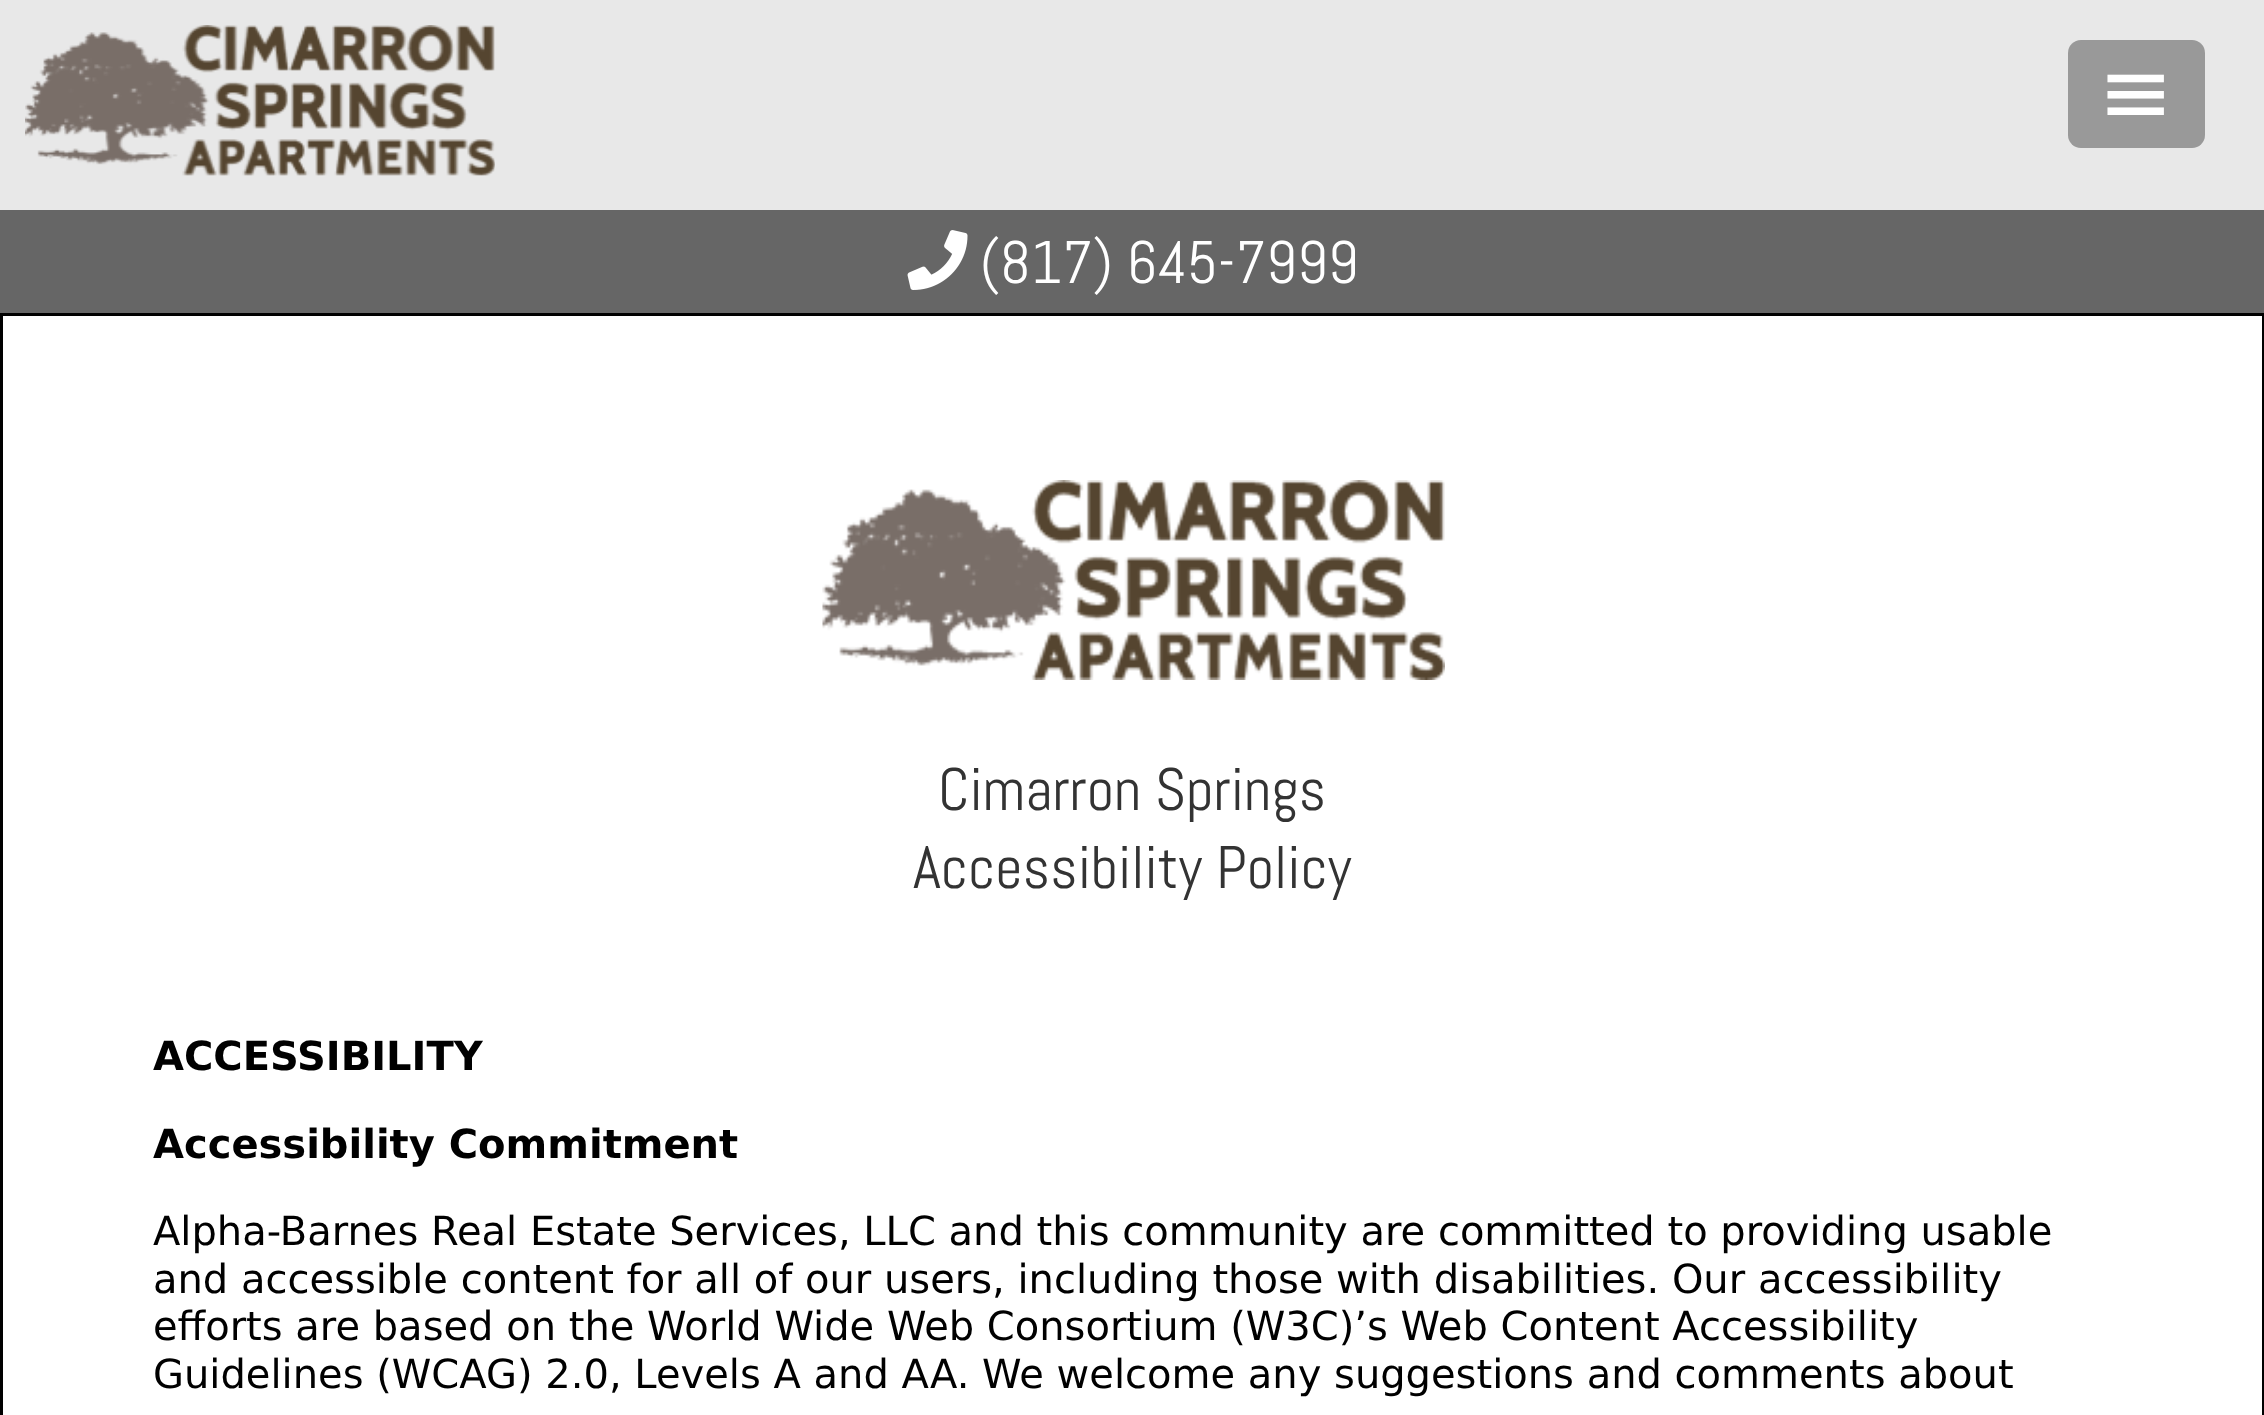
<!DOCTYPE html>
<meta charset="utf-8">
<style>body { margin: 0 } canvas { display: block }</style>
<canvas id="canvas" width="2264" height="1415"></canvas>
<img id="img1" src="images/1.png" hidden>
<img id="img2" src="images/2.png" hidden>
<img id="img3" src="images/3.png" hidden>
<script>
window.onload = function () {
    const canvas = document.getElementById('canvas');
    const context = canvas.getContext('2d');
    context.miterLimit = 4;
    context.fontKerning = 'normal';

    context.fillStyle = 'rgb(255, 255, 255)';
    context.fillRect(0, 0, 2264, 1415);
    context.strokeStyle = 'rgb(0, 0, 0)';
    context.lineWidth = 3;
    context.strokeRect(1.5, 1.5, 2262, 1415);
    context.fillStyle = 'rgb(232, 232, 232)';
    context.fillRect(0, 0, 2264, 210);
    context.fillStyle = 'rgb(153, 153, 153)';
    context.beginPath();
    context.roundRect(2068, 40, 137, 108, 13);
    context.fill();
    context.fillStyle = 'rgb(0, 0, 0)';
    context.fillRect(0, 313, 2264, 3);
    context.drawImage(document.getElementById('img1'), 25, 25, 470, 151);
    context.fillStyle = 'rgb(102, 102, 102)';
    context.fillRect(0, 210, 2264, 103);
    context.drawImage(document.getElementById('img2'), 907, 230, 61, 60);
    context.drawImage(document.getElementById('img3'), 822, 480, 623, 200);
    context.font = '90px DejaVu Sans';
    context.fillStyle = 'rgb(255, 255, 255)';
    context.fillText('≡', 2098, 123);
    context.font = '60px Abel';
    context.fillText('(817) 645-7999', 980, 283);
    context.fillStyle = 'rgb(51, 51, 51)';
    context.fillText('Cimarron Springs', 938, 810);
    context.fillText('Accessibility Policy', 913, 888);
    context.font = 'bold 40px DejaVu Sans';
    context.fillStyle = 'rgb(0, 0, 0)';
    context.fillText('ACCESSIBILITY', 153, 1070);
    context.fillText('Accessibility Commitment', 153, 1158);
    context.font = '40px DejaVu Sans';
    context.fillText('Alpha-Barnes Real Estate Services, LLC and this community are committed to providing usable', 153, 1245);
    context.fillText('and accessible content for all of our users, including those with disabilities. Our accessibility', 153, 1293);
    context.fillText('efforts are based on the World Wide Web Consortium (W3C)’s Web Content Accessibility', 153, 1340);
    context.fillText('Guidelines (WCAG) 2.0, Levels A and AA. We welcome any suggestions and comments about', 153, 1388);
};
</script>
